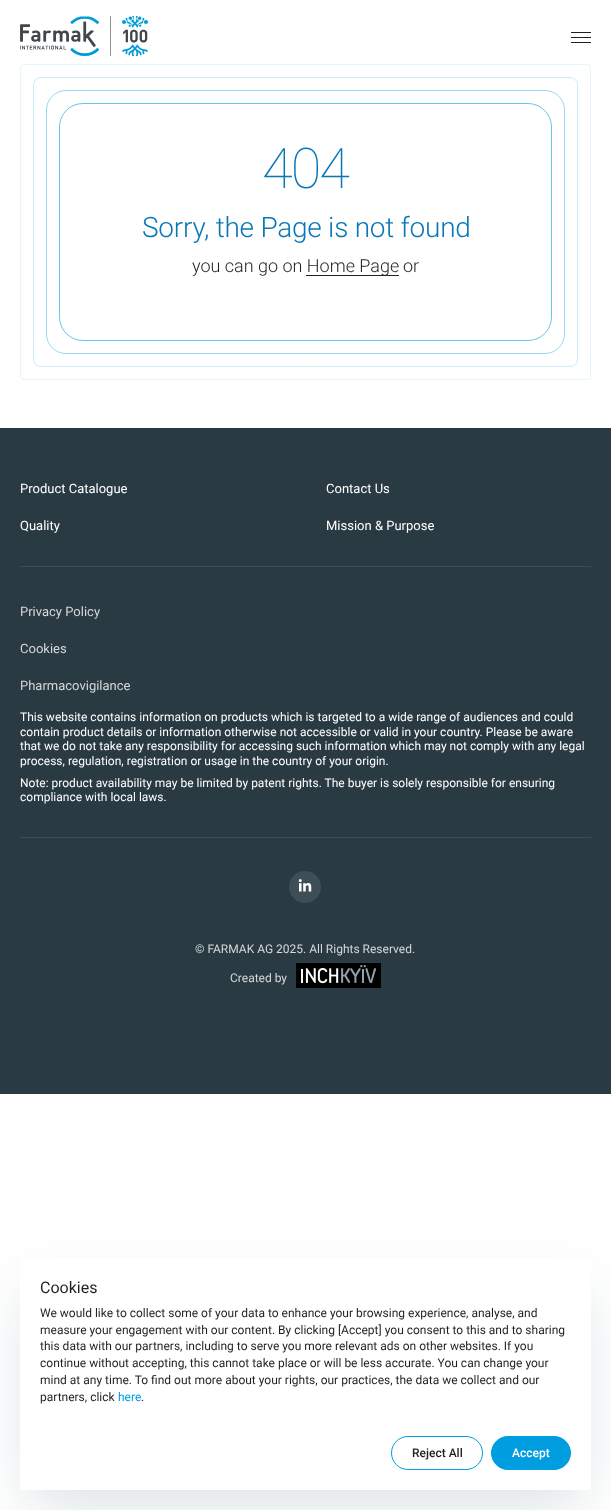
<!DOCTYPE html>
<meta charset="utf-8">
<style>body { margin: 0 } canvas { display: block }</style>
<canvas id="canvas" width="611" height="1510"></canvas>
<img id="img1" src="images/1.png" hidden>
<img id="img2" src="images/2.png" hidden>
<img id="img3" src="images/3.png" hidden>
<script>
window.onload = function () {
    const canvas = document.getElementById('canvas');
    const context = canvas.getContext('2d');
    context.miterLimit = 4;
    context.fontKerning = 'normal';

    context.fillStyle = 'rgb(255, 255, 255)';
    context.fillRect(0, 0, 611, 1510);
    context.drawImage(document.getElementById('img1'), 20, 16, 128, 40);
    context.fillStyle = 'rgb(35, 31, 32)';
    context.fillRect(571, 32, 20, 1);
    context.fillRect(571, 37, 20, 1);
    context.fillRect(571, 42, 20, 1);
    context.beginPath();
    context.roundRect(20.5, 64.5, 570, 315, 3.5);
    context.strokeStyle = 'rgb(230, 245, 252)';
    context.stroke();
    context.beginPath();
    context.roundRect(33.5, 77.5, 544, 289, 7.5);
    context.strokeStyle = 'rgb(204, 236, 249)';
    context.stroke();
    context.beginPath();
    context.roundRect(46.5, 90.5, 518, 263, 19.5);
    context.strokeStyle = 'rgb(153, 216, 243)';
    context.stroke();
    context.beginPath();
    context.roundRect(59.5, 103.5, 492, 237, 23.5);
    context.strokeStyle = 'rgb(102, 197, 236)';
    context.stroke();
    context.fillRect(306, 275, 93, 1);
    context.fillStyle = 'rgb(41, 58, 67)';
    context.fillRect(0, 428, 611, 666);
    context.fillStyle = 'rgb(62, 77, 85)';
    context.fillRect(20, 566, 571, 1);
    context.fillRect(20, 837, 571, 1);
    context.drawImage(document.getElementById('img2'), 289, 871, 32, 32);
    context.drawImage(document.getElementById('img3'), 296, 963, 85, 25);
    context.save();
    context.beginPath();
    context.moveTo(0, 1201);
    context.lineTo(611, 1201);
    context.lineTo(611, 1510);
    context.lineTo(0, 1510);
    context.closePath();
    context.moveTo(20, 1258);
    context.lineTo(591, 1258);
    context.lineTo(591, 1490);
    context.lineTo(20, 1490);
    context.closePath();
    context.clip('evenodd');
    context.fillStyle = 'rgba(0, 45, 64, 0.15)';
    context.filter = 'blur(30px)';
    context.beginPath();
    context.rect(30, 1292, 551, 212);
    context.fill();
    context.filter = 'none';
    context.restore();
    context.beginPath();
    context.roundRect(391.5, 1436.5, 91, 33, 16.5);
    context.strokeStyle = 'rgb(0, 158, 224)';
    context.stroke();
    context.fillStyle = 'rgb(0, 158, 224)';
    context.beginPath();
    context.roundRect(491.5, 1436.5, 79, 33, 16.5);
    context.fill();
    context.stroke();
    context.letterSpacing = '-2px';
    context.font = '100 56px Roboto';
    context.fillStyle = 'rgb(9, 119, 183)';
    context.fillText('404', 262, 188);
    context.letterSpacing = '-0.25px';
    context.font = '300 28px Roboto';
    context.fillText('Sorry, the Page is not found', 142, 237);
    context.letterSpacing = '0px';
    context.font = '300 18px Roboto';
    context.fillStyle = 'rgb(35, 31, 32)';
    context.fillText('you can go on Home Page', 192, 272);
    context.fillText('or', 403, 272);
    context.font = '13px Roboto';
    context.fillStyle = 'rgb(255, 255, 255)';
    context.fillText('Product Catalogue', 20, 493);
    context.fillText('Quality', 20, 530);
    context.fillText('Contact Us', 326, 493);
    context.fillText('Mission & Purpose', 326, 530);
    context.fillStyle = 'rgb(212, 216, 217)';
    context.fillText('Privacy Policy', 20, 616);
    context.fillText('Cookies', 20, 653);
    context.fillText('Pharmacovigilance', 20, 690);
    context.font = '12px Roboto';
    context.fillStyle = 'rgb(255, 255, 255)';
    context.fillText('This website contains information on products which is targeted to a wide range of audiences and could', 20, 721);
    context.fillText('contain product details or information otherwise not accessible or valid in your country. Please be aware', 20, 736);
    context.fillText('that we do not take any responsibility for accessing such information which may not comply with any legal', 20, 750);
    context.fillText('process, regulation, registration or usage in the country of your origin.', 20, 765);
    context.fillText('Note: product availability may be limited by patent rights. The buyer is solely responsible for ensuring', 20, 787);
    context.fillText('compliance with local laws.', 20, 801);
    context.fillStyle = 'rgb(212, 216, 217)';
    context.fillText('© FARMAK AG 2025. All Rights Reserved.', 195, 953);
    context.fillText('Created by', 230, 982);
    context.font = '16px Roboto';
    context.fillStyle = 'rgb(35, 31, 32)';
    context.fillText('Cookies', 40, 1293);
    context.font = '12px Roboto';
    context.fillText('We would like to collect some of your data to enhance your browsing experience, analyse, and', 40, 1317);
    context.fillText('measure your engagement with our content. By clicking [Accept] you consent to this and to sharing', 40, 1334);
    context.fillText('this data with our partners, including to serve you more relevant ads on other websites. If you', 40, 1350);
    context.fillText('continue without accepting, this cannot take place or will be less accurate. You can change your', 40, 1367);
    context.fillText('mind at any time. To find out more about your rights, our practices, the data we collect and our', 40, 1384);
    context.fillText('partners, click', 40, 1401);
    context.fillStyle = 'rgb(0, 158, 224)';
    context.fillText('here', 118, 1401);
    context.fillStyle = 'rgb(35, 31, 32)';
    context.fillText('.', 141, 1401);
    context.font = '500 12px Roboto';
    context.fillText('Reject All', 412, 1457);
    context.fillStyle = 'rgb(255, 255, 255)';
    context.fillText('Accept', 512, 1457);
};
</script>
